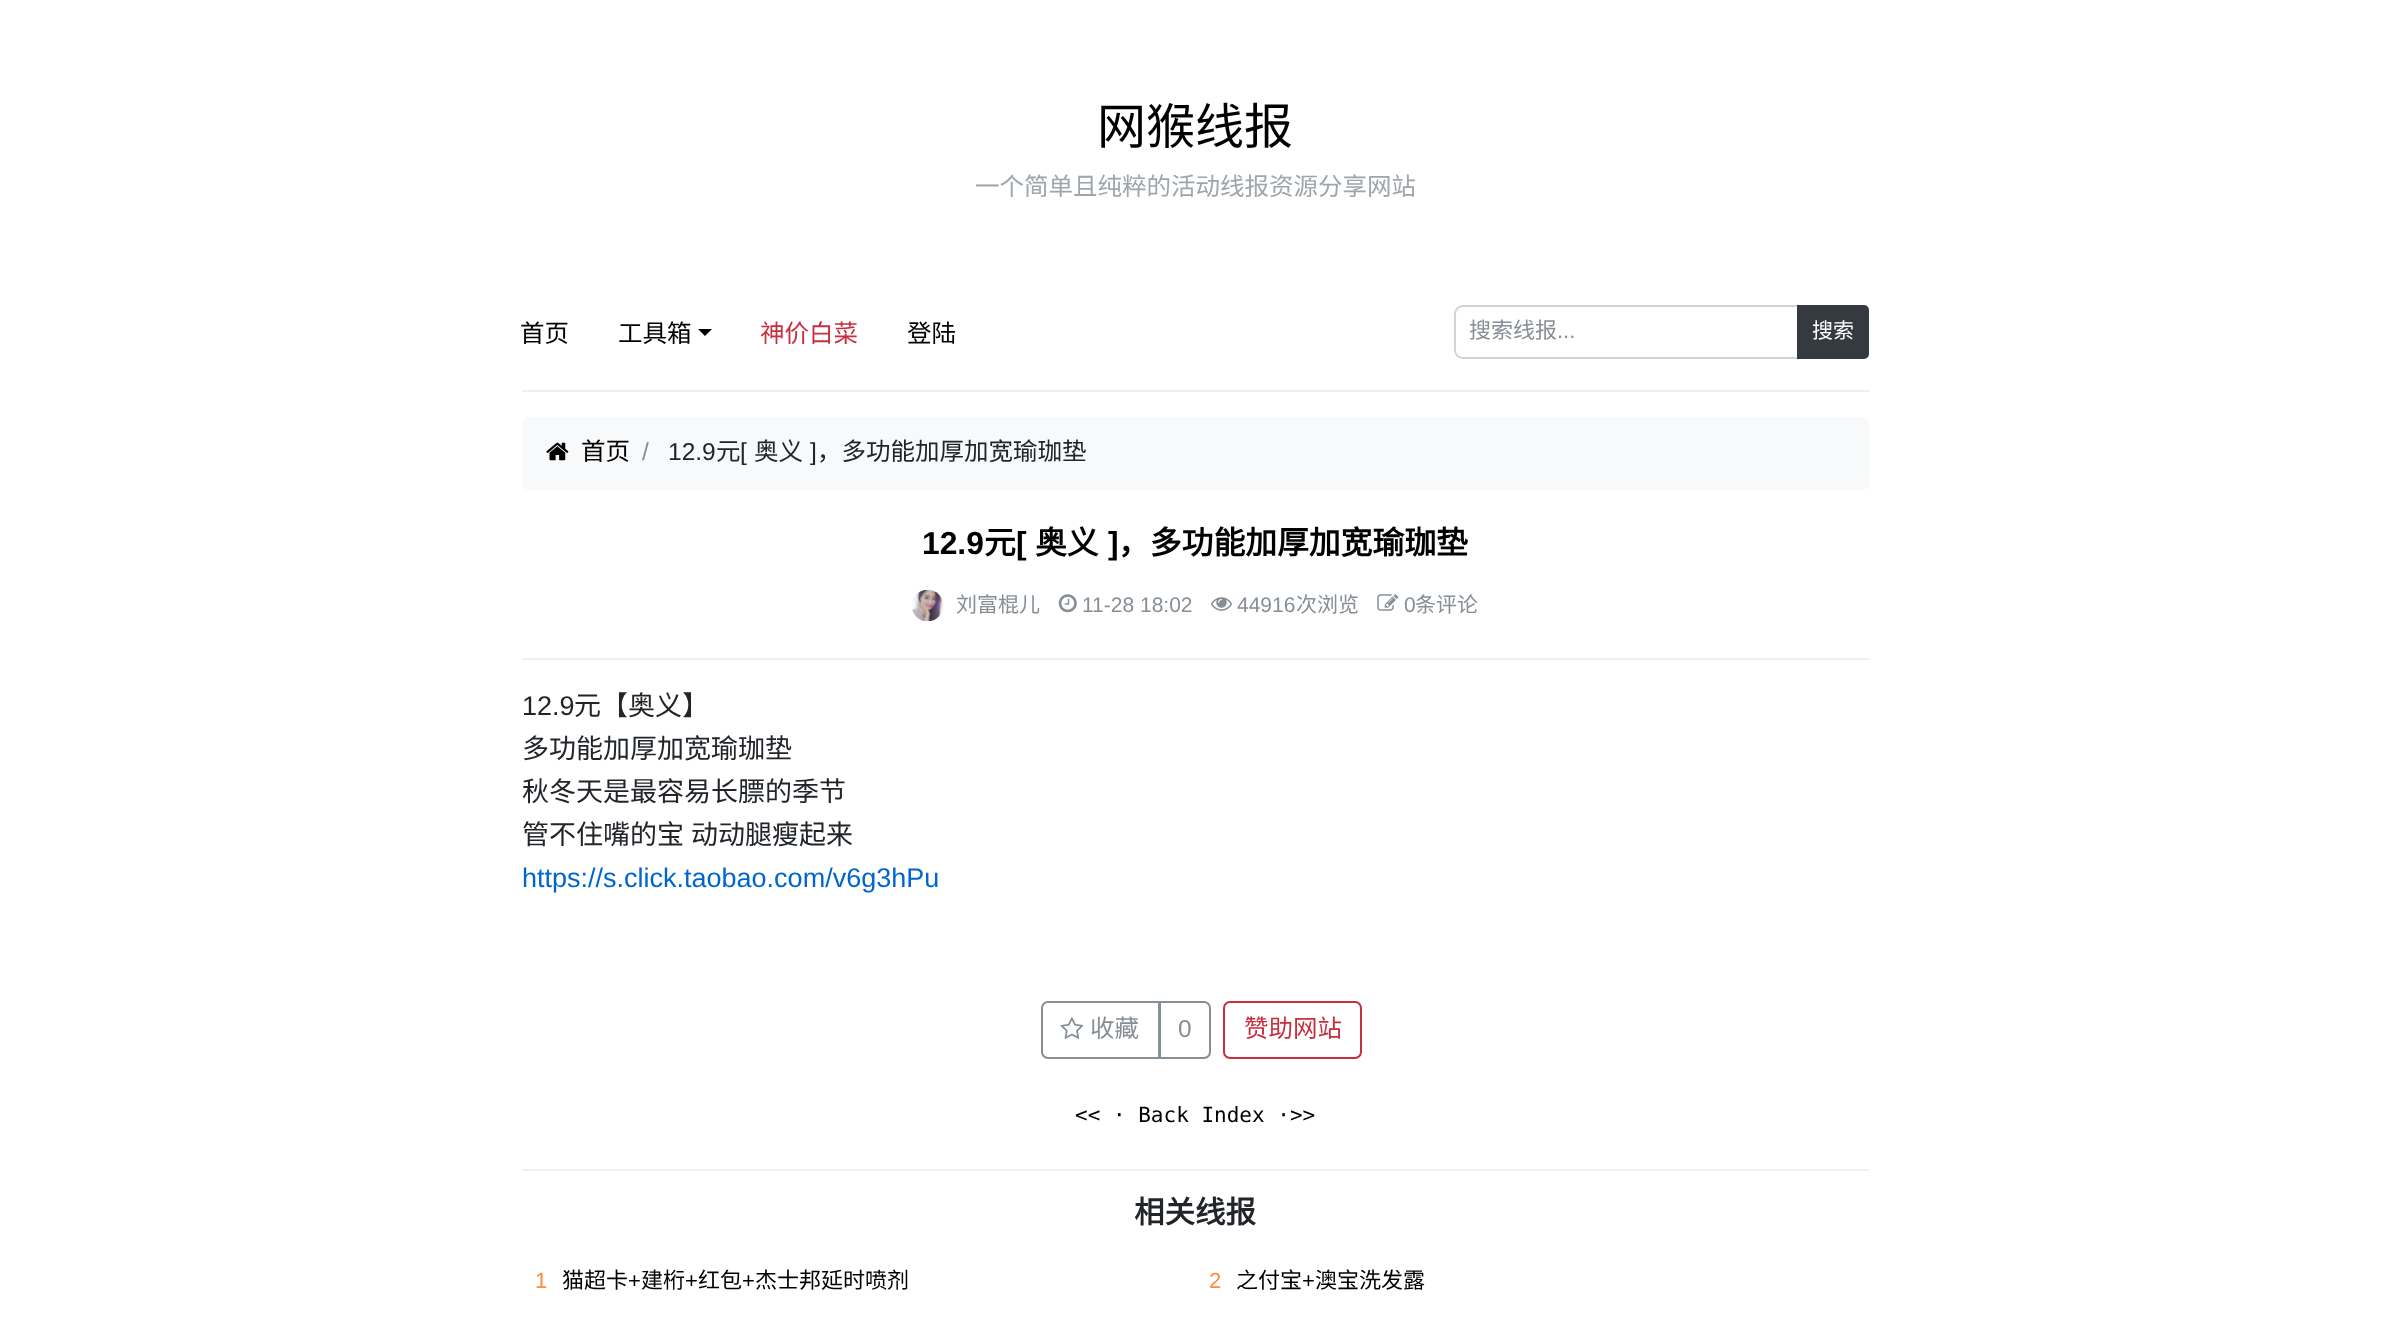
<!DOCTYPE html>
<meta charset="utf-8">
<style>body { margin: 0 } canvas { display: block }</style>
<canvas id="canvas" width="2390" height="1326"></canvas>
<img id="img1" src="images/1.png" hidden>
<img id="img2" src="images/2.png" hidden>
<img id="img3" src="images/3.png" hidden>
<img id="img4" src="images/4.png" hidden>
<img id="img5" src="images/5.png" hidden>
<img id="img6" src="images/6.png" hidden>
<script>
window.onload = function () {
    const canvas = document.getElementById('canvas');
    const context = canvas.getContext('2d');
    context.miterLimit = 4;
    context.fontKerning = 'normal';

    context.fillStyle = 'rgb(255, 255, 255)';
    context.fillRect(0, 0, 2390, 1326);
    context.fillStyle = 'rgb(0, 0, 0)';
    context.beginPath();
    context.moveTo(698, 329);
    context.lineTo(712, 329);
    context.lineTo(705, 336);
    context.closePath();
    context.fill();
    context.beginPath();
    context.roundRect(1455, 306, 343, 52, [8, 0, 0, 8]);
    context.strokeStyle = 'rgb(206, 212, 218)';
    context.lineWidth = 2;
    context.stroke();
    context.fillStyle = 'rgb(52, 58, 64)';
    context.beginPath();
    context.roundRect(1798, 306, 70, 52, [0, 4, 4, 0]);
    context.fill();
    context.strokeStyle = 'rgb(52, 58, 64)';
    context.stroke();
    context.fillStyle = 'rgb(239, 239, 239)';
    context.fillRect(522, 390, 1347, 2);
    context.fillStyle = 'rgb(248, 249, 250)';
    context.beginPath();
    context.roundRect(522, 417, 1347, 73, 7);
    context.fill();
    context.drawImage(document.getElementById('img1'), 546, 442, 23, 19);
    context.drawImage(document.getElementById('img2'), 912, 589, 31, 33);
    context.drawImage(document.getElementById('img3'), 1058, 594, 19, 19);
    context.drawImage(document.getElementById('img4'), 1211, 597, 21, 14);
    context.drawImage(document.getElementById('img5'), 1377, 594, 22, 17);
    context.fillStyle = 'rgb(239, 239, 239)';
    context.fillRect(522, 658, 1347, 2);
    context.beginPath();
    context.roundRect(1042, 1002, 117, 56, [6, 0, 0, 6]);
    context.strokeStyle = 'rgb(134, 142, 150)';
    context.stroke();
    context.drawImage(document.getElementById('img6'), 1060, 1017, 24, 22);
    context.beginPath();
    context.roundRect(1160, 1002, 50, 56, [0, 6, 6, 0]);
    context.stroke();
    context.beginPath();
    context.roundRect(1224, 1002, 137, 56, 6);
    context.strokeStyle = 'rgb(198, 48, 62)';
    context.stroke();
    context.fillRect(522, 1169, 1347, 2);
    context.font = '49px Noto Sans CJK SC';
    context.fillStyle = 'rgb(0, 0, 0)';
    context.fillText('网猴线报', 1097, 144);
    context.font = '24.5px Noto Sans CJK SC';
    context.fillStyle = 'rgb(158, 165, 171)';
    context.fillText('一个简单且纯粹的活动线报资源分享网站', 975, 195);
    context.fillStyle = 'rgb(0, 0, 0)';
    context.fillText('首页', 520, 342);
    context.fillText('工具箱', 618, 342);
    context.fillStyle = 'rgb(198, 48, 62)';
    context.fillText('神价白菜', 760, 342);
    context.fillStyle = 'rgb(0, 0, 0)';
    context.fillText('登陆', 907, 342);
    context.font = '22px Noto Sans CJK SC';
    context.fillStyle = 'rgb(134, 142, 150)';
    context.fillText('搜索线报', 1469, 338);
    context.font = '22px Liberation Sans';
    context.fillText('...', 1557, 338);
    context.font = '21px Noto Sans CJK SC';
    context.fillStyle = 'rgb(255, 255, 255)';
    context.fillText('搜索', 1812, 338);
    context.font = '24.5px Noto Sans CJK SC';
    context.fillStyle = 'rgb(0, 0, 0)';
    context.fillText('首页', 581, 460);
    context.font = '24.5px Liberation Sans';
    context.fillStyle = 'rgb(134, 142, 150)';
    context.fillText('/', 642, 460);
    context.fillStyle = 'rgb(33, 37, 41)';
    context.fillText('12.9', 668, 460);
    context.font = '24.5px Noto Sans CJK SC';
    context.fillText('元', 716, 460);
    context.font = '24.5px Liberation Sans';
    context.fillText('[', 740, 460);
    context.font = '24.5px Noto Sans CJK SC';
    context.fillText('奥义', 754, 460);
    context.font = '24.5px Liberation Sans';
    context.fillText(']', 810, 460);
    context.font = '24.5px Noto Sans CJK SC';
    context.fillText('，多功能加厚加宽瑜珈垫', 817, 460);
    context.font = 'bold 31.8px Liberation Sans';
    context.fillStyle = 'rgb(0, 0, 0)';
    context.fillText('12.9', 922, 554);
    context.font = 'bold 31.8px Noto Sans CJK SC';
    context.fillText('元', 984, 554);
    context.font = 'bold 31.8px Liberation Sans';
    context.fillText('[', 1016, 554);
    context.font = 'bold 31.8px Noto Sans CJK SC';
    context.fillText('奥义', 1035, 554);
    context.font = 'bold 31.8px Liberation Sans';
    context.fillText(']', 1108, 554);
    context.font = 'bold 31.8px Noto Sans CJK SC';
    context.fillText('，多功能加厚加宽瑜珈垫', 1118, 554);
    context.font = '21px Noto Sans CJK SC';
    context.fillStyle = 'rgb(134, 142, 150)';
    context.fillText('刘富棍儿', 956, 612);
    context.font = '21px Liberation Sans';
    context.fillText('11-28 18:02', 1082, 612);
    context.fillText('44916', 1237, 612);
    context.font = '21px Noto Sans CJK SC';
    context.fillText('次浏览', 1296, 612);
    context.font = '21px Liberation Sans';
    context.fillText('0', 1404, 612);
    context.font = '21px Noto Sans CJK SC';
    context.fillText('条评论', 1415, 612);
    context.font = '27px Liberation Sans';
    context.fillStyle = 'rgb(33, 37, 41)';
    context.fillText('12.9', 522, 715);
    context.font = '27px Noto Sans CJK SC';
    context.fillText('元【奥义】', 574, 715);
    context.fillText('多功能加厚加宽瑜珈垫', 522, 758);
    context.fillText('秋冬天是最容易长膘的季节', 522, 801);
    context.wordSpacing = '1px';
    context.fillText('管不住嘴的宝 动动腿瘦起来', 522, 844);
    context.wordSpacing = '0px';
    context.font = '27px Liberation Sans';
    context.fillStyle = 'rgb(0, 102, 204)';
    context.fillText('https://s.click.taobao.com/v6g3hPu', 522, 887);
    context.font = '24.5px Noto Sans CJK SC';
    context.fillStyle = 'rgb(134, 142, 150)';
    context.fillText('收藏', 1090, 1037);
    context.font = '24.5px Liberation Sans';
    context.fillText('0', 1178, 1037);
    context.font = '24.5px Noto Sans CJK SC';
    context.fillStyle = 'rgb(198, 48, 62)';
    context.fillText('赞助网站', 1244, 1037);
    context.font = '21px DejaVu Sans Mono';
    context.fillStyle = 'rgb(0, 0, 0)';
    context.fillText('<< · Back Index ·>>', 1075, 1122);
    context.font = 'bold 30.5px Noto Sans CJK SC';
    context.fillStyle = 'rgb(33, 37, 41)';
    context.fillText('相关线报', 1134, 1223);
    context.font = '22px Liberation Sans';
    context.fillStyle = 'rgb(255, 139, 61)';
    context.fillText('1', 535, 1288);
    context.font = '22px Noto Sans CJK SC';
    context.fillStyle = 'rgb(0, 0, 0)';
    context.fillText('猫超卡', 562, 1288);
    context.font = '22px Liberation Sans';
    context.fillText('+', 628, 1288);
    context.font = '22px Noto Sans CJK SC';
    context.fillText('建桁', 641, 1288);
    context.font = '22px Liberation Sans';
    context.fillText('+', 685, 1288);
    context.font = '22px Noto Sans CJK SC';
    context.fillText('红包', 698, 1288);
    context.font = '22px Liberation Sans';
    context.fillText('+', 742, 1288);
    context.font = '22px Noto Sans CJK SC';
    context.fillText('杰士邦延时喷剂', 755, 1288);
    context.font = '22px Liberation Sans';
    context.fillStyle = 'rgb(255, 139, 61)';
    context.fillText('2', 1209, 1288);
    context.font = '22px Noto Sans CJK SC';
    context.fillStyle = 'rgb(0, 0, 0)';
    context.fillText('之付宝', 1236, 1288);
    context.font = '22px Liberation Sans';
    context.fillText('+', 1302, 1288);
    context.font = '22px Noto Sans CJK SC';
    context.fillText('澳宝洗发露', 1315, 1288);
};
</script>
